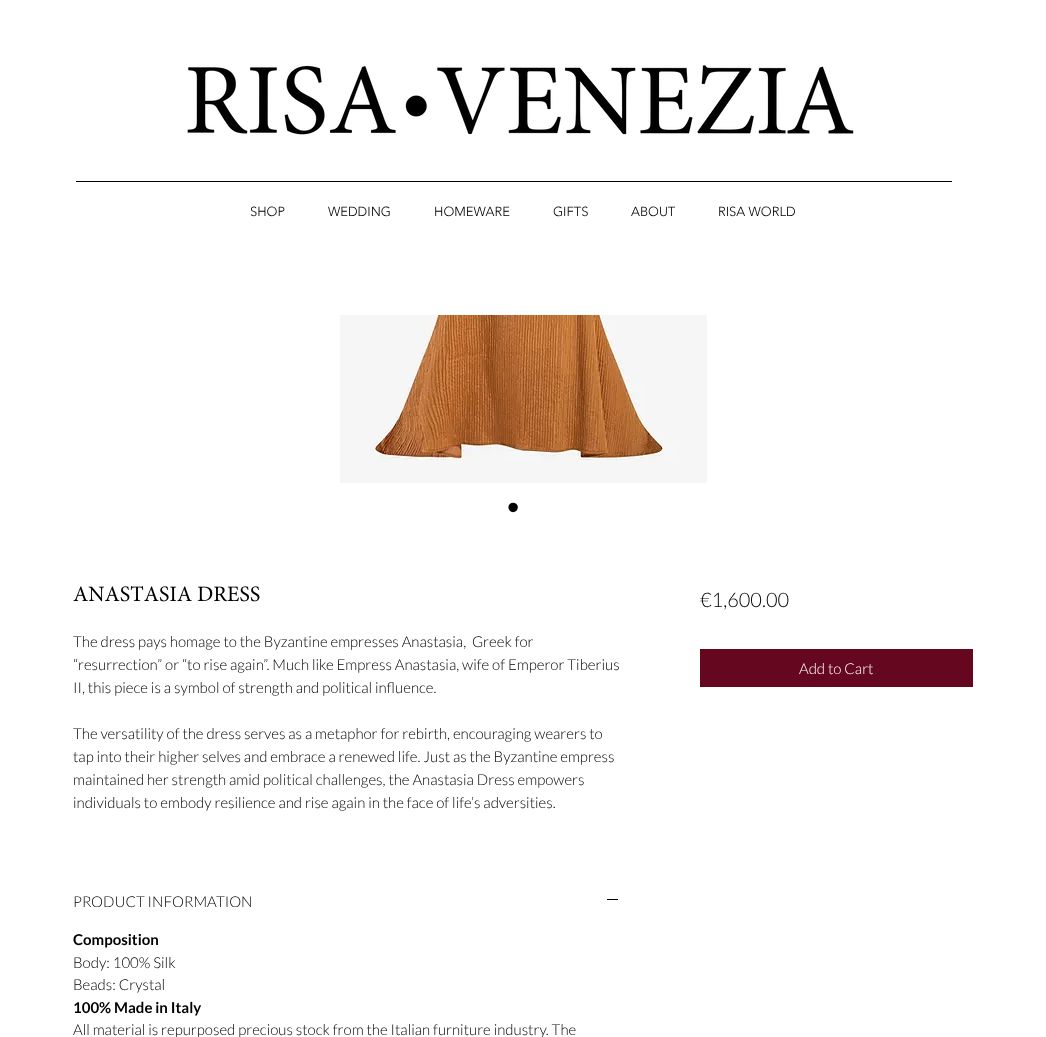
<!DOCTYPE html>
<meta charset="utf-8">
<style>body { margin: 0 } canvas { display: block }</style>
<canvas id="canvas" width="1046" height="1037"></canvas>
<img id="img1" src="images/1.png" hidden>
<img id="img2" src="images/2.png" hidden>
<img id="img3" src="images/3.png" hidden>
<script>
window.onload = function () {
    const canvas = document.getElementById('canvas');
    const context = canvas.getContext('2d');
    context.miterLimit = 4;
    context.fontKerning = 'normal';

    context.fillStyle = 'rgb(255, 255, 255)';
    context.fillRect(0, 0, 1046, 1037);
    context.drawImage(document.getElementById('img1'), 187, 65, 667, 70);
    context.fillStyle = 'rgb(0, 0, 0)';
    context.fillRect(76, 181, 876, 1);
    context.drawImage(document.getElementById('img2'), 340, 315, 367, 168);
    context.drawImage(document.getElementById('img3'), 73, 586, 187, 16);
    context.fillRect(607, 899, 11, 1);
    context.fillStyle = 'rgb(101, 8, 31)';
    context.fillRect(700, 649, 273, 38);
    context.font = '300 13px "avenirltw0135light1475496"';
    context.fillStyle = 'rgb(0, 0, 0)';
    context.fillText('SHOP', 250, 216);
    context.fillText('WEDDING', 328, 216);
    context.fillText('HOMEWARE', 434, 216);
    context.fillText('GIFTS', 553, 216);
    context.fillText('ABOUT', 631, 216);
    context.fillText('RISA WORLD', 718, 216);
    context.font = '35px Liberation Sans';
    context.fillText('•', 507, 519);
    context.font = '300 15px Lato';
    context.fillText('The dress pays homage to the Byzantine empresses Anastasia,  Greek for', 73, 647);
    context.fillText('“resurrection” or “to rise again”. Much like Empress Anastasia, wife of Emperor Tiberius', 73, 670);
    context.fillText('II, this piece is a symbol of strength and political influence.', 73, 693);
    context.fillText('The versatility of the dress serves as a metaphor for rebirth, encouraging wearers to', 73, 739);
    context.fillText('tap into their higher selves and embrace a renewed life. Just as the Byzantine empress', 73, 762);
    context.fillText('maintained her strength amid political challenges, the Anastasia Dress empowers', 73, 785);
    context.fillText('individuals to embody resilience and rise again in the face of life’s adversities.', 73, 808);
    context.fillText('PRODUCT INFORMATION', 73, 907);
    context.font = 'bold 15px Lato';
    context.fillText('Composition', 73, 945);
    context.font = '300 15px Lato';
    context.fillText('Body: 100% Silk', 73, 968);
    context.fillText('Beads: Crystal', 73, 990);
    context.font = 'bold 15px Lato';
    context.fillText('100% Made in Italy', 73, 1013);
    context.font = '300 15px Lato';
    context.fillText('All material is repurposed precious stock from the Italian furniture industry. The', 73, 1035);
    context.font = '300 20px Lato';
    context.fillText('€1,600.00', 700, 607);
    context.font = '300 15px Lato';
    context.fillStyle = 'rgb(255, 255, 255)';
    context.fillText('Add to Cart', 799, 674);
};
</script>
